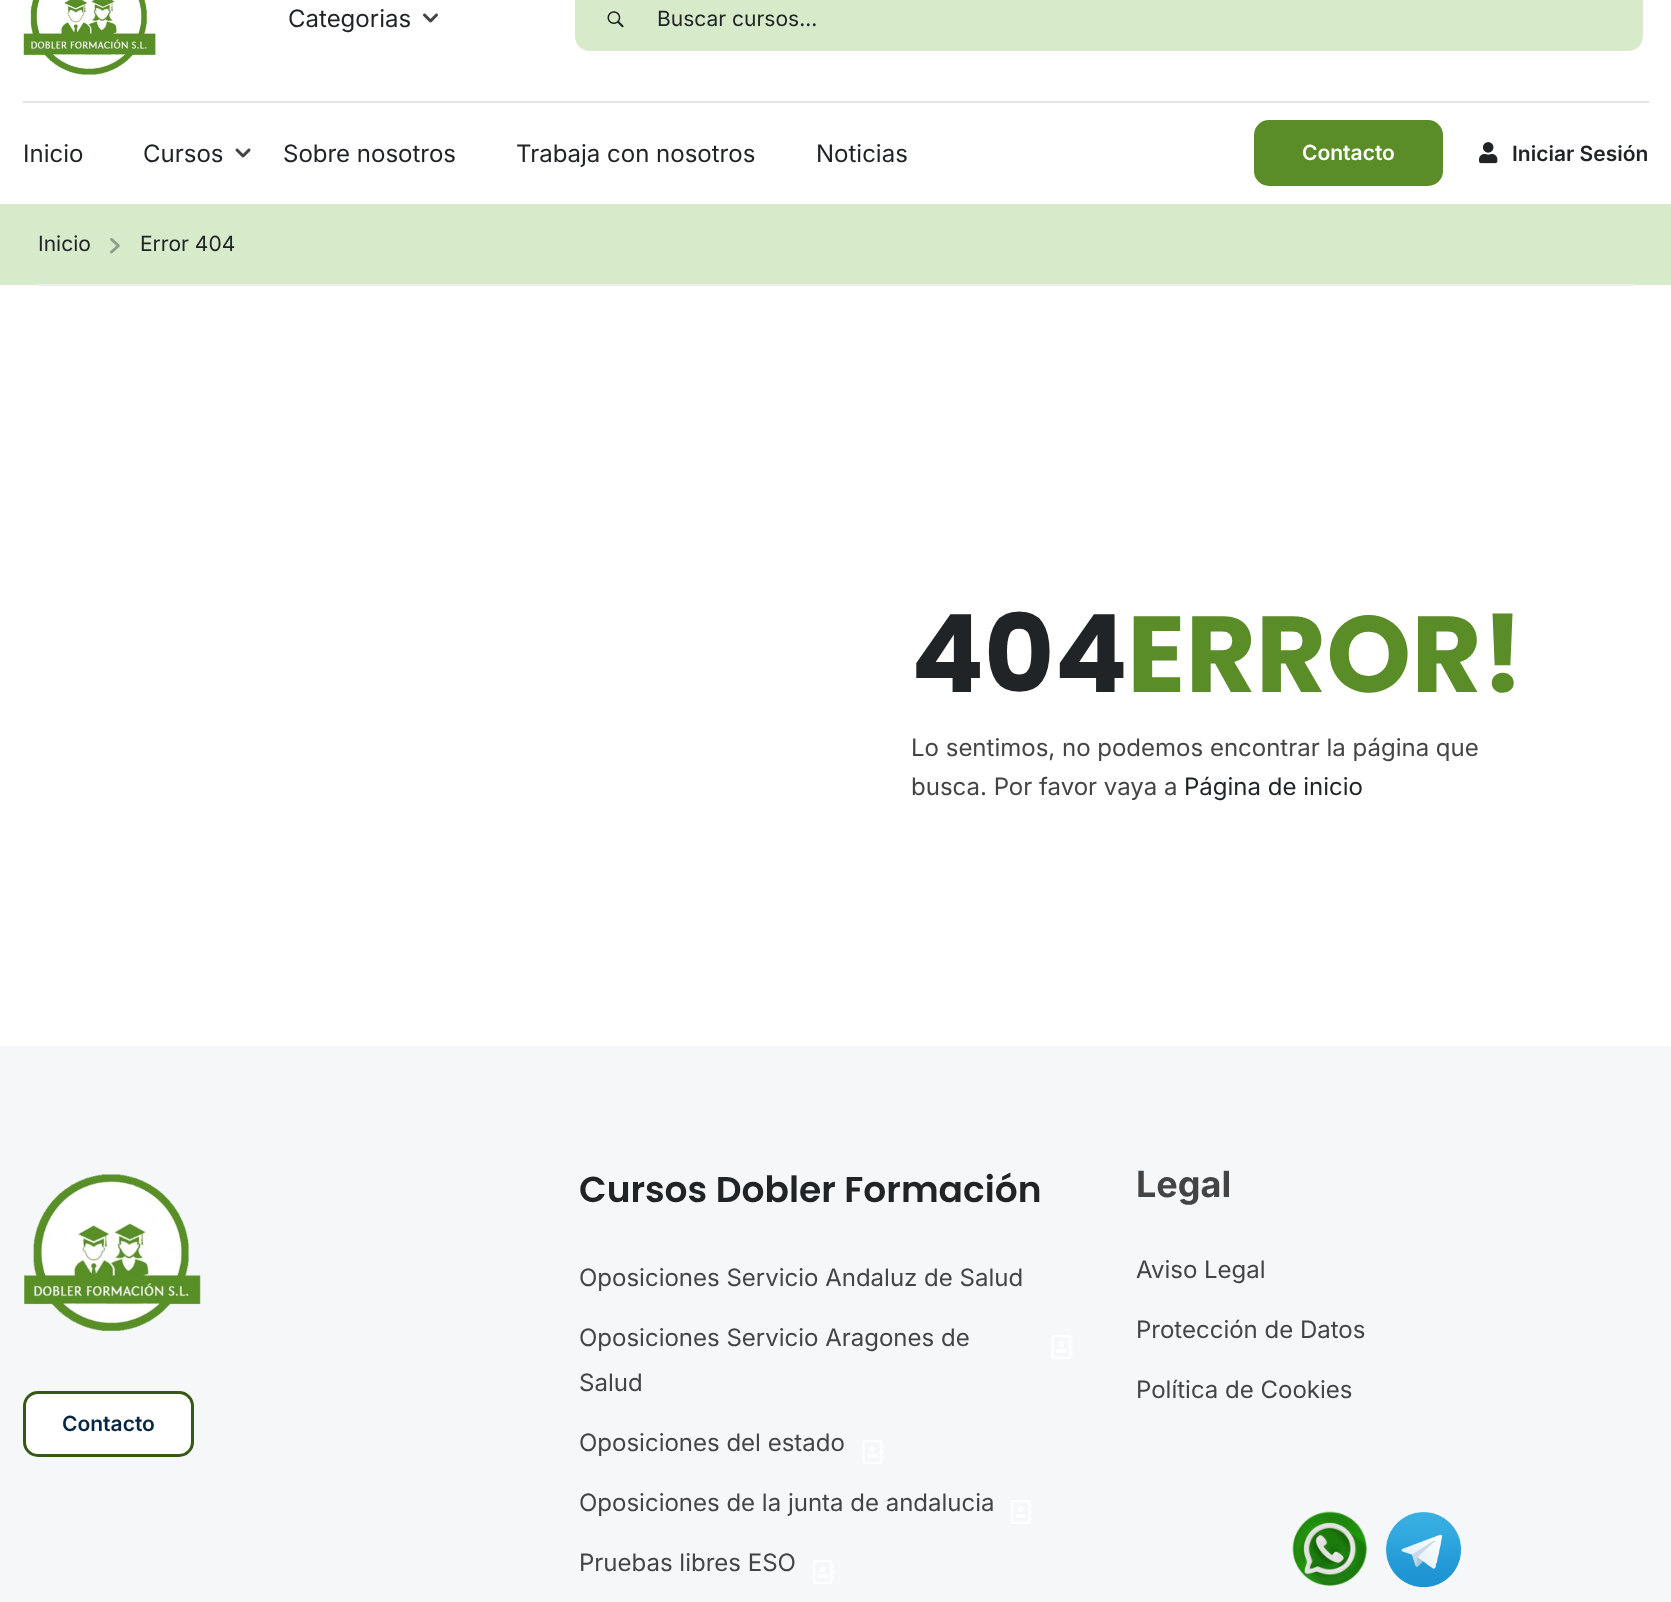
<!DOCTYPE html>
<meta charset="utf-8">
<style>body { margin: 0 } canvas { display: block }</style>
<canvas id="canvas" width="1671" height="1602"></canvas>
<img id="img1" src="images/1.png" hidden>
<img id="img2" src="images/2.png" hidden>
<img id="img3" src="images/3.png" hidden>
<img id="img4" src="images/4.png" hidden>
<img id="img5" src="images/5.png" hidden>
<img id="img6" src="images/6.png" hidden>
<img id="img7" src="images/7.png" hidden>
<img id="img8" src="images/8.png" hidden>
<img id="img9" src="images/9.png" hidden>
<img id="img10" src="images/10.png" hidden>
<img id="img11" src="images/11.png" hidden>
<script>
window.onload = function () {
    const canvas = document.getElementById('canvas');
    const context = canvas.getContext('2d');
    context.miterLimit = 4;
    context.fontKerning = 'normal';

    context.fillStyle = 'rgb(255, 255, 255)';
    context.fillRect(0, 0, 1671, 1602);
    context.drawImage(document.getElementById('img1'), 23, 0, 133, 75);
    context.drawImage(document.getElementById('img2'), 423, 13, 15, 10);
    context.fillStyle = 'rgb(215, 235, 202)';
    context.beginPath();
    context.moveTo(590, -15);
    context.lineTo(657, -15);
    context.lineTo(657, 51);
    context.lineTo(590, 51);
    context.bezierCurveTo(581.5, 51, 575, 44.5, 575, 36);
    context.lineTo(575, 0);
    context.bezierCurveTo(575, -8.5, 581.5, -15, 590, -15);
    context.closePath();
    context.fill();
    context.drawImage(document.getElementById('img3'), 607, 11, 17, 17);
    context.beginPath();
    context.moveTo(657, -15);
    context.lineTo(1628, -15);
    context.bezierCurveTo(1636.5, -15, 1643, -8.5, 1643, 0);
    context.lineTo(1643, 36);
    context.bezierCurveTo(1643, 44.5, 1636.5, 51, 1628, 51);
    context.lineTo(657, 51);
    context.closePath();
    context.fill();
    context.fillStyle = 'rgb(228, 228, 228)';
    context.fillRect(23, 101, 1626, 2);
    context.drawImage(document.getElementById('img4'), 235, 148, 16, 10);
    context.fillStyle = 'rgb(90, 140, 39)';
    context.beginPath();
    context.roundRect(1254, 120, 189, 66, 15);
    context.fill();
    context.drawImage(document.getElementById('img5'), 1479, 142, 19, 22);
    context.fillStyle = 'rgb(215, 235, 202)';
    context.fillRect(0, 204, 1671, 81);
    context.fillStyle = 'rgb(238, 238, 238)';
    context.fillRect(38, 284, 1596, 2);
    context.drawImage(document.getElementById('img6'), 110, 238, 10, 16);
    context.fillStyle = 'rgb(245, 247, 248)';
    context.fillRect(0, 1046, 1671, 556);
    context.drawImage(document.getElementById('img7'), 24, 1174, 177, 157);
    context.fillStyle = 'rgb(255, 255, 255)';
    context.beginPath();
    context.roundRect(24.5, 1392.5, 168, 63, 13.5);
    context.fill();
    context.strokeStyle = 'rgb(54, 88, 20)';
    context.lineWidth = 3;
    context.stroke();
    context.drawImage(document.getElementById('img8'), 1051, 1335, 22, 24);
    context.drawImage(document.getElementById('img8'), 862, 1440, 22, 24);
    context.drawImage(document.getElementById('img9'), 1011, 1500, 21, 24);
    context.drawImage(document.getElementById('img9'), 813, 1560, 21, 24);
    context.drawImage(document.getElementById('img10'), 1292, 1511, 75, 75);
    context.drawImage(document.getElementById('img11'), 1386, 1512, 75, 75);
    context.font = '24px Inter';
    context.fillStyle = 'rgb(33, 36, 39)';
    context.fillText('Categorias', 288, 27);
    context.font = '21px Inter';
    context.fillText('Buscar cursos...', 657, 26);
    context.font = '24px Inter';
    context.fillText('Inicio', 23, 162);
    context.fillText('Cursos', 143, 162);
    context.fillText('Sobre nosotros', 283, 162);
    context.fillText('Trabaja con nosotros', 516, 162);
    context.fillText('Noticias', 816, 162);
    context.font = '600 21px Inter';
    context.fillStyle = 'rgb(255, 255, 255)';
    context.fillText('Contacto', 1302, 160);
    context.fillStyle = 'rgb(33, 36, 39)';
    context.fillText('Iniciar Sesión', 1512, 161);
    context.font = '21px Inter';
    context.fillText('Inicio', 38, 251);
    context.fillText('Error 404', 140, 251);
    context.font = 'bold 108px Poppins';
    context.fillText('404', 911, 692);
    context.fillStyle = 'rgb(90, 140, 39)';
    context.fillText('ERROR!', 1127, 692);
    context.font = '24px Inter';
    context.fillStyle = 'rgb(68, 68, 68)';
    context.fillText('Lo sentimos, no podemos encontrar la página que', 911, 756);
    context.fillText('busca. Por favor vaya a', 911, 795);
    context.fillStyle = 'rgb(33, 36, 39)';
    context.fillText('Página de inicio', 1184, 795);
    context.font = '600 21px Inter';
    context.fillStyle = 'rgb(8, 38, 69)';
    context.fillText('Contacto', 62, 1431);
    context.font = '600 36px Poppins';
    context.fillStyle = 'rgb(33, 36, 39)';
    context.fillText('Cursos Dobler Formación', 579, 1202);
    context.font = '24px Inter';
    context.fillStyle = 'rgb(68, 68, 68)';
    context.fillText('Oposiciones Servicio Andaluz de Salud', 579, 1286);
    context.fillText('Oposiciones Servicio Aragones de', 579, 1346);
    context.fillText('Salud', 579, 1391);
    context.fillText('Oposiciones del estado', 579, 1451);
    context.fillText('Oposiciones de la junta de andalucia', 579, 1511);
    context.fillText('Pruebas libres ESO', 579, 1571);
    context.font = 'bold 36px Inter';
    context.fillText('Legal', 1136, 1197);
    context.font = '24px Inter';
    context.fillText('Aviso Legal', 1136, 1278);
    context.fillText('Protección de Datos', 1136, 1338);
    context.fillText('Política de Cookies', 1136, 1398);
};
</script>
